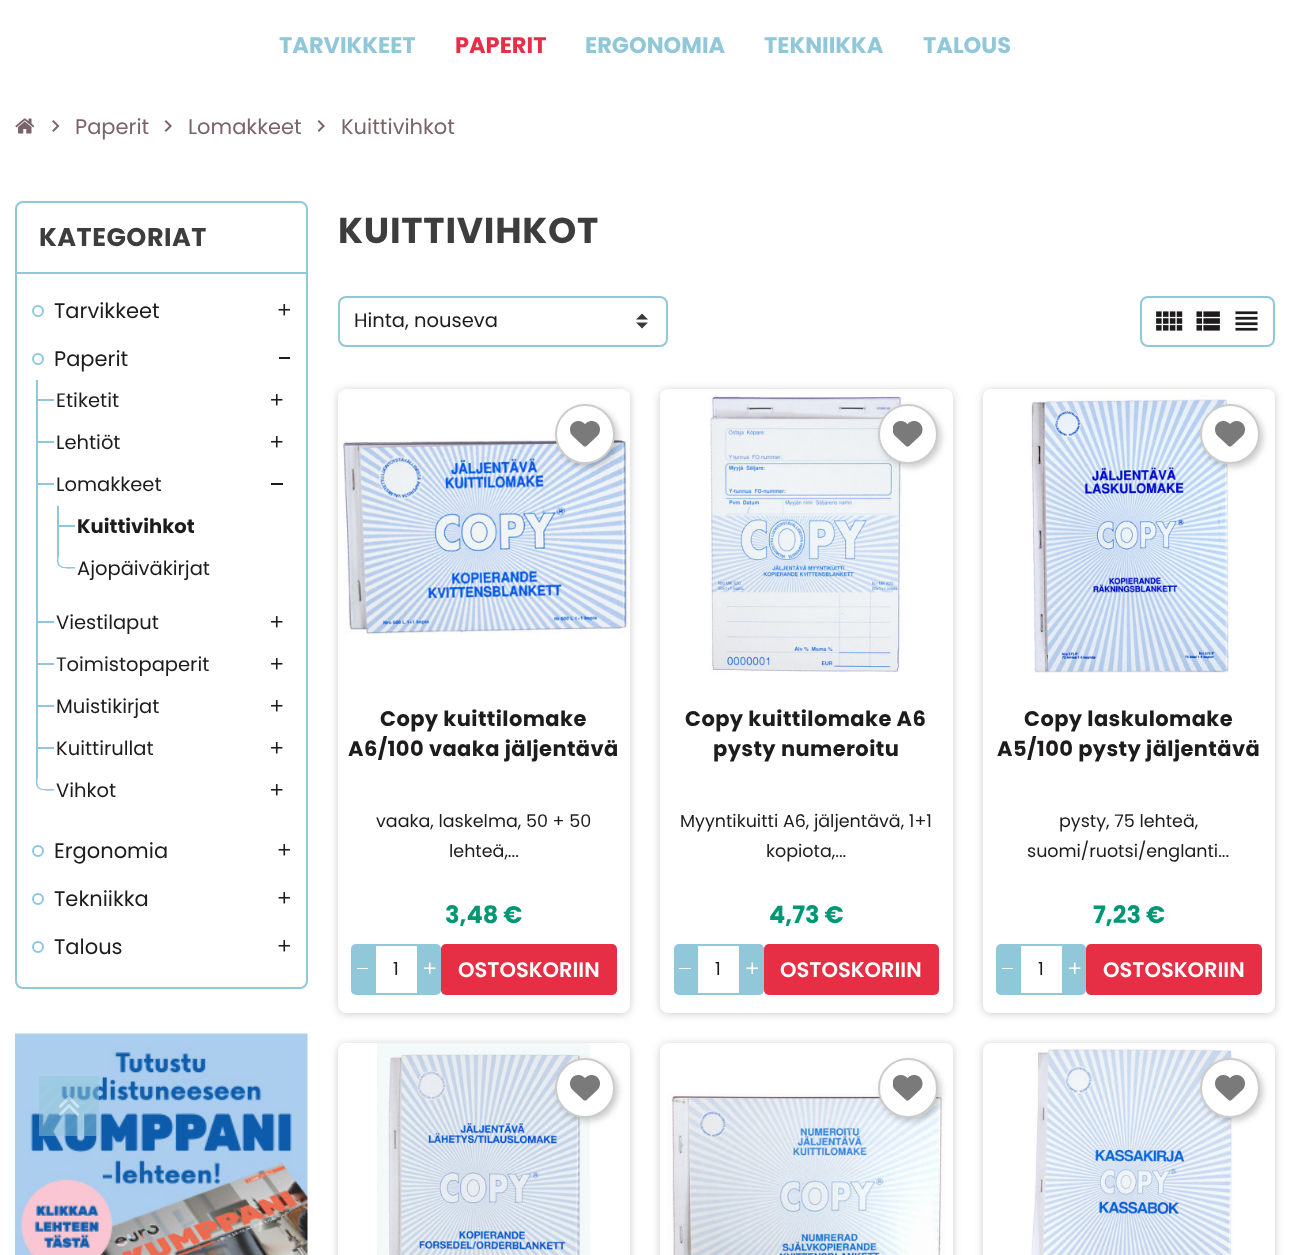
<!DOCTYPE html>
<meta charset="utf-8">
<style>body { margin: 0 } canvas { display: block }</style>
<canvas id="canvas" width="1290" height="1255"></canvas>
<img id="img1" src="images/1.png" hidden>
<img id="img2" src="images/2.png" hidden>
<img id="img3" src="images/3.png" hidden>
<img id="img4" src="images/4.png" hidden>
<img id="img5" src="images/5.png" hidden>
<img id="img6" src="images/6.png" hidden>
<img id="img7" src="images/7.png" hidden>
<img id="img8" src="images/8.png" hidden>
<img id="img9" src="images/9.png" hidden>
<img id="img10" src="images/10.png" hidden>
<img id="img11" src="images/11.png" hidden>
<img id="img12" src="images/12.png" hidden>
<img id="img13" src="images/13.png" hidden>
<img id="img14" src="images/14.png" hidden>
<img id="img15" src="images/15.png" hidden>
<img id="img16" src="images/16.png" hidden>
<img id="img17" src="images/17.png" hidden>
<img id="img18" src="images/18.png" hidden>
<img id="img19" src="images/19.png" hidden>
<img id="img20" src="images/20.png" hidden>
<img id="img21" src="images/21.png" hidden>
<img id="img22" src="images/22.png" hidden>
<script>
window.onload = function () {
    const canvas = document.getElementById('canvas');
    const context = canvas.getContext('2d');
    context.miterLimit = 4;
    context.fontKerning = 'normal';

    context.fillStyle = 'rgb(255, 255, 255)';
    context.fillRect(0, 0, 1290, 1255);
    context.drawImage(document.getElementById('img1'), 15, 118, 20, 16);
    context.drawImage(document.getElementById('img2'), 52, 120, 8, 12);
    context.drawImage(document.getElementById('img3'), 164, 120, 8, 12);
    context.drawImage(document.getElementById('img3'), 317, 120, 8, 12);
    context.beginPath();
    context.roundRect(16, 202, 291, 786, 7);
    context.strokeStyle = 'rgb(144, 200, 218)';
    context.lineWidth = 2;
    context.stroke();
    context.fillStyle = 'rgb(144, 200, 218)';
    context.fillRect(17, 272, 289, 2);
    context.beginPath();
    context.arc(38, 311, 5, 0, 2 * Math.PI);
    context.stroke();
    context.drawImage(document.getElementById('img4'), 278, 304, 12, 12);
    context.beginPath();
    context.arc(38, 359, 5, 0, 2 * Math.PI);
    context.stroke();
    context.fillStyle = 'rgb(30, 27, 29)';
    context.fillRect(279, 357, 11, 2);
    context.fillStyle = 'rgb(144, 200, 218)';
    context.fillRect(36, 399, 18, 2);
    context.fillRect(36, 380, 2, 42);
    context.drawImage(document.getElementById('img5'), 271, 394, 12, 12);
    context.fillRect(36, 441, 18, 2);
    context.fillRect(36, 422, 2, 42);
    context.drawImage(document.getElementById('img5'), 271, 436, 12, 12);
    context.fillRect(36, 483, 18, 2);
    context.fillRect(36, 464, 2, 138);
    context.fillStyle = 'rgb(30, 27, 29)';
    context.fillRect(271, 483, 12, 2);
    context.fillStyle = 'rgb(144, 200, 218)';
    context.fillRect(57, 525, 18, 2);
    context.fillRect(57, 506, 2, 51);
    context.beginPath();
    context.moveTo(57, 547.5);
    context.lineTo(75, 547.5);
    context.lineTo(75, 568.5);
    context.bezierCurveTo(69, 568.5, 57, 570.5, 57, 561);
    context.closePath();
    context.moveTo(58.5, 547.5);
    context.lineTo(75, 547.5);
    context.lineTo(75, 567);
    context.lineTo(64.5, 567);
    context.bezierCurveTo(61, 567, 58.5, 564.5, 58.5, 561);
    context.closePath();
    context.fill('evenodd');
    context.fillRect(36, 621, 18, 2);
    context.fillRect(36, 602, 2, 42);
    context.drawImage(document.getElementById('img5'), 271, 616, 12, 12);
    context.fillRect(36, 663, 18, 2);
    context.fillRect(36, 644, 2, 42);
    context.drawImage(document.getElementById('img5'), 271, 658, 12, 12);
    context.fillRect(36, 705, 18, 2);
    context.fillRect(36, 686, 2, 42);
    context.drawImage(document.getElementById('img5'), 271, 700, 12, 12);
    context.fillRect(36, 747, 18, 2);
    context.fillRect(36, 728, 2, 51);
    context.drawImage(document.getElementById('img5'), 271, 742, 12, 12);
    context.beginPath();
    context.moveTo(36, 769.5);
    context.lineTo(54, 769.5);
    context.lineTo(54, 790.5);
    context.bezierCurveTo(48, 790.5, 36, 792.5, 36, 783);
    context.closePath();
    context.moveTo(37.5, 769.5);
    context.lineTo(54, 769.5);
    context.lineTo(54, 789);
    context.lineTo(43.5, 789);
    context.bezierCurveTo(40, 789, 37.5, 786.5, 37.5, 783);
    context.closePath();
    context.fill('evenodd');
    context.drawImage(document.getElementById('img5'), 271, 784, 12, 12);
    context.beginPath();
    context.arc(38, 851, 5, 0, 2 * Math.PI);
    context.stroke();
    context.drawImage(document.getElementById('img4'), 278, 844, 12, 12);
    context.beginPath();
    context.arc(38, 899, 5, 0, 2 * Math.PI);
    context.stroke();
    context.drawImage(document.getElementById('img4'), 278, 892, 12, 12);
    context.beginPath();
    context.arc(38, 947, 5, 0, 2 * Math.PI);
    context.stroke();
    context.drawImage(document.getElementById('img4'), 278, 940, 12, 12);
    context.drawImage(document.getElementById('img6'), 15, 1033, 293, 222);
    context.drawImage(document.getElementById('img7'), 636, 314, 12, 15);
    context.beginPath();
    context.roundRect(339, 297, 328, 49, 7);
    context.stroke();
    context.beginPath();
    context.roundRect(1141, 297, 133, 49, 7);
    context.stroke();
    context.drawImage(document.getElementById('img8'), 1156, 311, 27, 20);
    context.drawImage(document.getElementById('img9'), 1196, 311, 24, 20);
    context.drawImage(document.getElementById('img10'), 1235, 311, 23, 20);
    context.fillStyle = 'rgba(0, 0, 0, 0.2)';
    context.filter = 'blur(4px)';
    context.beginPath();
    context.roundRect(338, 390, 292, 624, 8);
    context.fill();
    context.filter = 'none';
    context.fillStyle = 'rgb(255, 255, 255)';
    context.beginPath();
    context.roundRect(338, 389, 292, 624, 8);
    context.fill();
    context.drawImage(document.getElementById('img11'), 339, 439, 291, 196);
    context.fillStyle = 'rgba(0, 0, 0, 0.2)';
    context.filter = 'blur(3px)';
    context.beginPath();
    context.roundRect(558, 407, 60, 60, 30);
    context.fill();
    context.filter = 'none';
    context.fillStyle = 'rgb(255, 255, 255)';
    context.beginPath();
    context.arc(585, 434, 29, 0, 2 * Math.PI);
    context.fill();
    context.strokeStyle = 'rgb(204, 204, 204)';
    context.stroke();
    context.drawImage(document.getElementById('img12'), 570, 421, 30, 26);
    context.fillStyle = 'rgb(144, 200, 218)';
    context.beginPath();
    context.roundRect(352, 945, 21, 49, [4, 0, 0, 4]);
    context.fill();
    context.strokeStyle = 'rgb(144, 200, 218)';
    context.stroke();
    context.fillStyle = 'rgb(255, 255, 255)';
    context.fillRect(357, 968, 11, 1);
    context.strokeRect(375, 945, 43, 49);
    context.fillStyle = 'rgb(144, 200, 218)';
    context.beginPath();
    context.roundRect(420, 945, 20, 49, [0, 4, 4, 0]);
    context.fill();
    context.stroke();
    context.drawImage(document.getElementById('img13'), 424, 962, 12, 12);
    context.fillStyle = 'rgb(230, 46, 69)';
    context.beginPath();
    context.roundRect(441, 944, 176, 51, 5);
    context.fill();
    context.fillStyle = 'rgba(0, 0, 0, 0.2)';
    context.filter = 'blur(4px)';
    context.beginPath();
    context.roundRect(660, 390, 293, 624, 8);
    context.fill();
    context.filter = 'none';
    context.fillStyle = 'rgb(255, 255, 255)';
    context.beginPath();
    context.roundRect(660, 389, 293, 624, 8);
    context.fill();
    context.drawImage(document.getElementById('img14'), 709, 395, 195, 278);
    context.fillStyle = 'rgba(0, 0, 0, 0.2)';
    context.filter = 'blur(3px)';
    context.beginPath();
    context.roundRect(881, 407, 60, 60, 30);
    context.fill();
    context.filter = 'none';
    context.fillStyle = 'rgb(255, 255, 255)';
    context.beginPath();
    context.arc(908, 434, 29, 0, 2 * Math.PI);
    context.fill();
    context.strokeStyle = 'rgb(204, 204, 204)';
    context.stroke();
    context.drawImage(document.getElementById('img15'), 893, 421, 30, 26);
    context.fillStyle = 'rgb(144, 200, 218)';
    context.beginPath();
    context.roundRect(675, 945, 20, 49, [4, 0, 0, 4]);
    context.fill();
    context.strokeStyle = 'rgb(144, 200, 218)';
    context.stroke();
    context.fillStyle = 'rgb(255, 255, 255)';
    context.fillRect(679, 968, 12, 1);
    context.strokeRect(697, 945, 43, 49);
    context.fillStyle = 'rgb(144, 200, 218)';
    context.beginPath();
    context.roundRect(742, 945, 21, 49, [0, 4, 4, 0]);
    context.fill();
    context.stroke();
    context.drawImage(document.getElementById('img16'), 746, 962, 12, 12);
    context.fillStyle = 'rgb(230, 46, 69)';
    context.beginPath();
    context.roundRect(764, 944, 175, 51, 5);
    context.fill();
    context.fillStyle = 'rgba(0, 0, 0, 0.2)';
    context.filter = 'blur(4px)';
    context.beginPath();
    context.roundRect(983, 390, 292, 624, 8);
    context.fill();
    context.filter = 'none';
    context.fillStyle = 'rgb(255, 255, 255)';
    context.beginPath();
    context.roundRect(983, 389, 292, 624, 8);
    context.fill();
    context.drawImage(document.getElementById('img17'), 1029, 395, 200, 278);
    context.fillStyle = 'rgba(0, 0, 0, 0.2)';
    context.filter = 'blur(3px)';
    context.beginPath();
    context.roundRect(1203, 407, 60, 60, 30);
    context.fill();
    context.filter = 'none';
    context.fillStyle = 'rgb(255, 255, 255)';
    context.beginPath();
    context.arc(1230, 434, 29, 0, 2 * Math.PI);
    context.fill();
    context.strokeStyle = 'rgb(204, 204, 204)';
    context.stroke();
    context.drawImage(document.getElementById('img12'), 1215, 421, 30, 26);
    context.fillStyle = 'rgb(144, 200, 218)';
    context.beginPath();
    context.roundRect(997, 945, 21, 49, [4, 0, 0, 4]);
    context.fill();
    context.strokeStyle = 'rgb(144, 200, 218)';
    context.stroke();
    context.fillStyle = 'rgb(255, 255, 255)';
    context.fillRect(1002, 968, 11, 1);
    context.strokeRect(1020, 945, 43, 49);
    context.fillStyle = 'rgb(144, 200, 218)';
    context.beginPath();
    context.roundRect(1065, 945, 20, 49, [0, 4, 4, 0]);
    context.fill();
    context.stroke();
    context.drawImage(document.getElementById('img13'), 1069, 962, 12, 12);
    context.fillStyle = 'rgb(230, 46, 69)';
    context.beginPath();
    context.roundRect(1086, 944, 176, 51, 5);
    context.fill();
    context.fillStyle = 'rgba(0, 0, 0, 0.2)';
    context.filter = 'blur(4px)';
    context.beginPath();
    context.roundRect(338, 1044, 292, 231, 8);
    context.fill();
    context.filter = 'none';
    context.fillStyle = 'rgb(255, 255, 255)';
    context.beginPath();
    context.roundRect(338, 1043, 292, 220, 8);
    context.fill();
    context.drawImage(document.getElementById('img18'), 377, 1043, 213, 212);
    context.fillStyle = 'rgba(0, 0, 0, 0.2)';
    context.filter = 'blur(3px)';
    context.beginPath();
    context.roundRect(558, 1061, 60, 60, 30);
    context.fill();
    context.filter = 'none';
    context.fillStyle = 'rgb(255, 255, 255)';
    context.beginPath();
    context.arc(585, 1088, 29, 0, 2 * Math.PI);
    context.fill();
    context.strokeStyle = 'rgb(204, 204, 204)';
    context.stroke();
    context.drawImage(document.getElementById('img12'), 570, 1075, 30, 26);
    context.fillStyle = 'rgba(0, 0, 0, 0.2)';
    context.filter = 'blur(4px)';
    context.beginPath();
    context.roundRect(660, 1044, 293, 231, 8);
    context.fill();
    context.filter = 'none';
    context.fillStyle = 'rgb(255, 255, 255)';
    context.beginPath();
    context.roundRect(660, 1043, 293, 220, 8);
    context.fill();
    context.drawImage(document.getElementById('img19'), 667, 1093, 278, 162);
    context.fillStyle = 'rgba(0, 0, 0, 0.2)';
    context.filter = 'blur(3px)';
    context.beginPath();
    context.roundRect(881, 1061, 60, 60, 30);
    context.fill();
    context.filter = 'none';
    context.fillStyle = 'rgb(255, 255, 255)';
    context.beginPath();
    context.arc(908, 1088, 29, 0, 2 * Math.PI);
    context.fill();
    context.stroke();
    context.drawImage(document.getElementById('img15'), 893, 1075, 30, 26);
    context.fillStyle = 'rgba(0, 0, 0, 0.2)';
    context.filter = 'blur(4px)';
    context.beginPath();
    context.roundRect(983, 1044, 292, 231, 8);
    context.fill();
    context.filter = 'none';
    context.fillStyle = 'rgb(255, 255, 255)';
    context.beginPath();
    context.roundRect(983, 1043, 292, 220, 8);
    context.fill();
    context.drawImage(document.getElementById('img20'), 1031, 1048, 204, 207);
    context.fillStyle = 'rgba(0, 0, 0, 0.2)';
    context.filter = 'blur(3px)';
    context.beginPath();
    context.roundRect(1203, 1061, 60, 60, 30);
    context.fill();
    context.filter = 'none';
    context.fillStyle = 'rgb(255, 255, 255)';
    context.beginPath();
    context.arc(1230, 1088, 29, 0, 2 * Math.PI);
    context.fill();
    context.stroke();
    context.drawImage(document.getElementById('img12'), 1215, 1075, 30, 26);
    context.fillStyle = 'rgba(144, 200, 218, 0.5)';
    context.fillRect(39, 1076, 60, 60);
    context.drawImage(document.getElementById('img21'), 40, 1087, 58, 48);
    context.drawImage(document.getElementById('img22'), 58, 1096, 22, 20);
    context.font = 'bold 22.5px Poppins';
    context.fillStyle = 'rgb(144, 200, 218)';
    context.fillText('TARVIKKEET', 279, 53);
    context.fillStyle = 'rgb(231, 46, 70)';
    context.fillText('PAPERIT', 455, 53);
    context.fillStyle = 'rgb(144, 200, 218)';
    context.fillText('ERGONOMIA', 585, 53);
    context.fillText('TEKNIIKKA', 764, 53);
    context.fillText('TALOUS', 923, 53);
    context.font = '21px Poppins';
    context.fillStyle = 'rgb(123, 100, 105)';
    context.fillText('Paperit', 75, 134);
    context.fillText('Lomakkeet', 188, 134);
    context.fillText('Kuittivihkot', 341, 134);
    context.letterSpacing = '0.5px';
    context.font = 'bold 25.5px Poppins';
    context.fillStyle = 'rgb(61, 61, 61)';
    context.fillText('KATEGORIAT', 39, 246);
    context.letterSpacing = '0px';
    context.font = '21px Poppins';
    context.fillStyle = 'rgb(30, 27, 29)';
    context.fillText('Tarvikkeet', 54, 318);
    context.fillText('Paperit', 54, 366);
    context.font = '19.5px Poppins';
    context.fillText('Etiketit', 56, 407);
    context.fillText('Lehtiöt', 56, 449);
    context.fillText('Lomakkeet', 56, 491);
    context.font = 'bold 19.5px Poppins';
    context.fillText('Kuittivihkot', 77, 533);
    context.font = '19.5px Poppins';
    context.fillText('Ajopäiväkirjat', 77, 575);
    context.fillText('Viestilaput', 56, 629);
    context.fillText('Toimistopaperit', 56, 671);
    context.fillText('Muistikirjat', 56, 713);
    context.fillText('Kuittirullat', 56, 755);
    context.fillText('Vihkot', 56, 797);
    context.font = '21px Poppins';
    context.fillText('Ergonomia', 54, 858);
    context.fillText('Tekniikka', 54, 906);
    context.fillText('Talous', 54, 954);
    context.letterSpacing = '0.75px';
    context.font = 'bold 36px Poppins';
    context.fillStyle = 'rgb(61, 61, 61)';
    context.fillText('KUITTIVIHKOT', 338, 243);
    context.letterSpacing = '0px';
    context.font = '19.5px Poppins';
    context.fillStyle = 'rgb(30, 27, 29)';
    context.fillText('Hinta, nouseva', 354, 327);
    context.letterSpacing = '0.4px';
    context.font = 'bold 21px Poppins';
    context.fillText('Copy kuittilomake', 380, 726);
    context.fillText('A6/100 vaaka jäljentävä', 348, 756);
    context.letterSpacing = '0px';
    context.font = '17.5px Poppins';
    context.fillText('vaaka, laskelma, 50 + 50', 376, 827);
    context.fillText('lehteä,...', 449, 857);
    context.font = 'bold 24px Poppins';
    context.fillStyle = 'rgb(0, 151, 117)';
    context.fillText('3,48 €', 445, 923);
    context.font = '18px Poppins';
    context.fillStyle = 'rgb(30, 27, 29)';
    context.fillText('1', 393, 975);
    context.font = '600 21px Poppins';
    context.fillStyle = 'rgb(255, 255, 255)';
    context.fillText('OSTOSKORIIN', 458, 977);
    context.letterSpacing = '0.4px';
    context.font = 'bold 21px Poppins';
    context.fillStyle = 'rgb(30, 27, 29)';
    context.fillText('Copy kuittilomake A6', 685, 726);
    context.fillText('pysty numeroitu', 713, 756);
    context.letterSpacing = '0px';
    context.font = '17.5px Poppins';
    context.fillText('Myyntikuitti A6, jäljentävä, 1+1', 680, 827);
    context.fillText('kopiota,...', 766, 857);
    context.font = 'bold 24px Poppins';
    context.fillStyle = 'rgb(0, 151, 117)';
    context.fillText('4,73 €', 769, 923);
    context.font = '18px Poppins';
    context.fillStyle = 'rgb(30, 27, 29)';
    context.fillText('1', 715, 975);
    context.font = '600 21px Poppins';
    context.fillStyle = 'rgb(255, 255, 255)';
    context.fillText('OSTOSKORIIN', 780, 977);
    context.letterSpacing = '0.4px';
    context.font = 'bold 21px Poppins';
    context.fillStyle = 'rgb(30, 27, 29)';
    context.fillText('Copy laskulomake', 1024, 726);
    context.fillText('A5/100 pysty jäljentävä', 997, 756);
    context.letterSpacing = '0px';
    context.font = '17.5px Poppins';
    context.fillText('pysty, 75 lehteä,', 1059, 827);
    context.fillText('suomi/ruotsi/englanti...', 1027, 857);
    context.font = 'bold 24px Poppins';
    context.fillStyle = 'rgb(0, 151, 117)';
    context.fillText('7,23 €', 1093, 923);
    context.font = '18px Poppins';
    context.fillStyle = 'rgb(30, 27, 29)';
    context.fillText('1', 1038, 975);
    context.font = '600 21px Poppins';
    context.fillStyle = 'rgb(255, 255, 255)';
    context.fillText('OSTOSKORIIN', 1103, 977);
};
</script>
